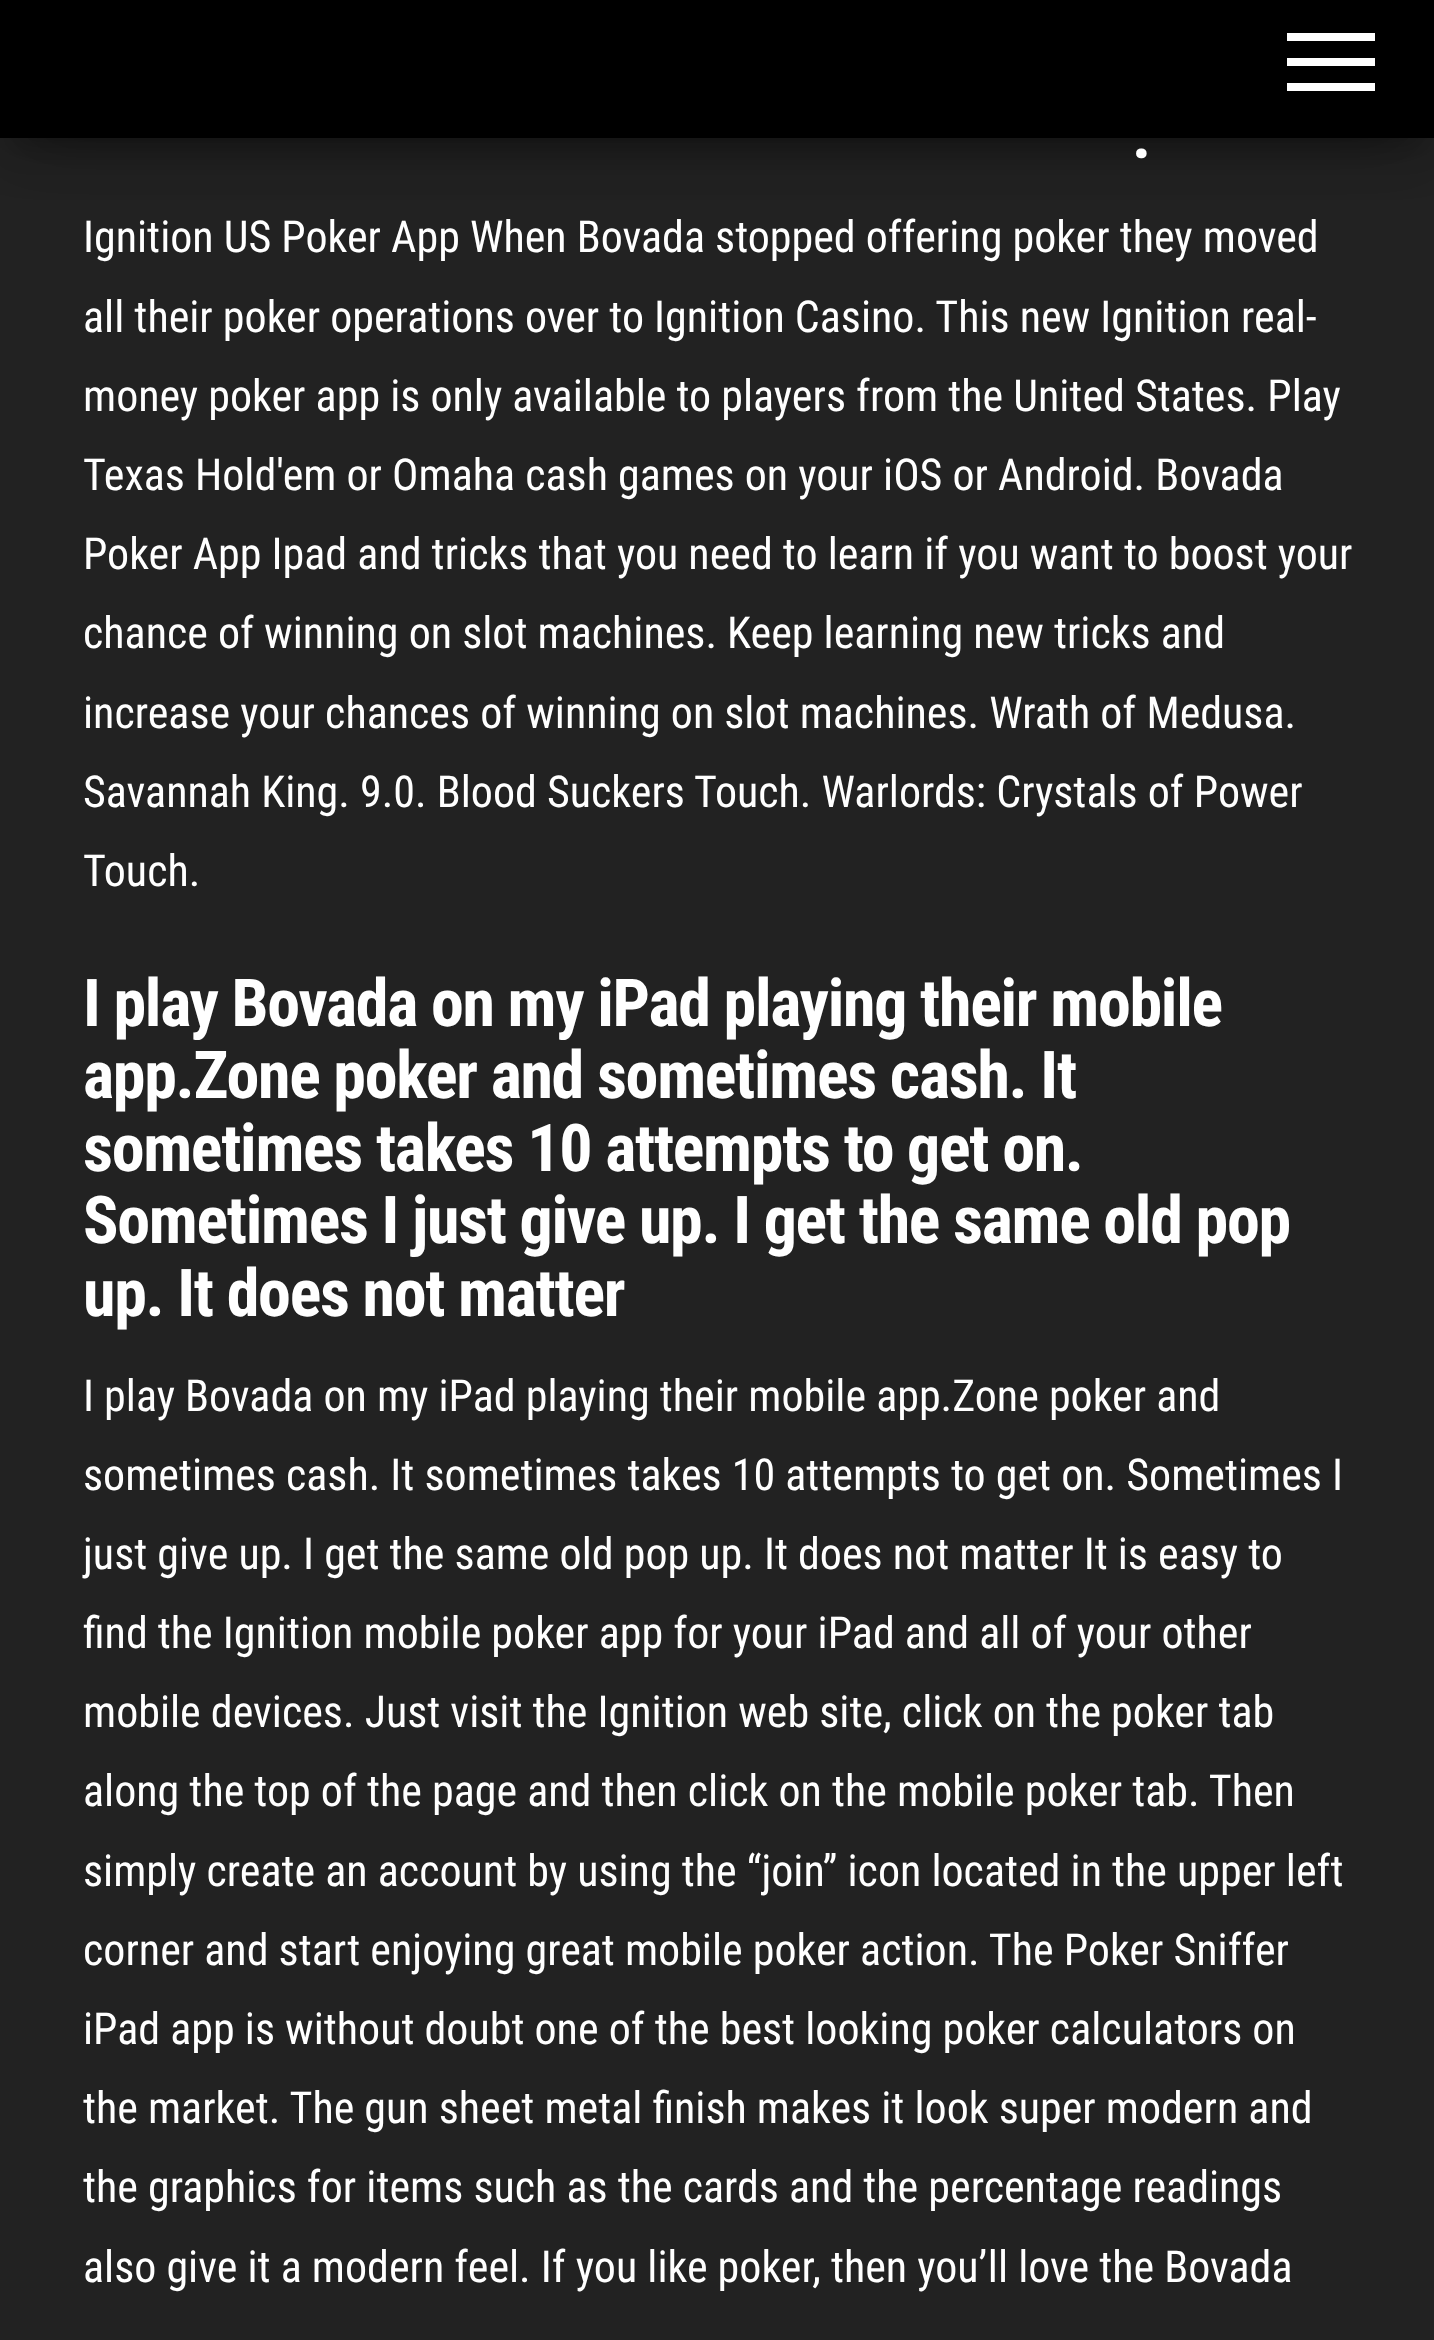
<!DOCTYPE html>
<meta charset="utf-8">
<style>body { margin: 0 } canvas { display: block }</style>
<canvas id="canvas" width="1434" height="2340"></canvas>
<script>
window.onload = function () {
    const canvas = document.getElementById('canvas');
    const context = canvas.getContext('2d');
    context.miterLimit = 4;
    context.fontKerning = 'normal';

    context.fillStyle = 'rgb(34, 34, 34)';
    context.fillRect(0, 0, 1434, 2340);
    context.fillStyle = 'rgba(0, 0, 0, 0.2)';
    context.filter = 'blur(14px)';
    context.beginPath();
    context.rect(14, 36, 1408, 110);
    context.fill();
    context.filter = 'none';
    context.fillStyle = 'rgba(0, 0, 0, 0.12)';
    context.filter = 'blur(27.5px)';
    context.beginPath();
    context.rect(0, 8, 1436, 138);
    context.fill();
    context.filter = 'none';
    context.fillStyle = 'rgba(0, 0, 0, 0.42)';
    context.filter = 'blur(27.5px)';
    context.beginPath();
    context.rect(33, 61, 1370, 71);
    context.fill();
    context.filter = 'none';
    context.fillStyle = 'rgb(0, 0, 0)';
    context.fillRect(0, 0, 1434, 138);
    context.fillStyle = 'rgb(255, 255, 255)';
    context.fillRect(1287, 33, 88, 8);
    context.fillRect(1287, 58, 88, 8);
    context.fillRect(1287, 83, 88, 8);
    context.letterSpacing = '-1.3px';
    context.font = 'bold 66px Roboto Condensed';
    context.fillText('.', 1132, 158);
    context.letterSpacing = '0px';
    context.font = '44px Roboto Condensed';
    context.fillText('Ignition US Poker App When Bovada stopped offering poker they moved', 83, 252);
    context.fillText('all their poker operations over to Ignition Casino. This new Ignition real-', 83, 332);
    context.fillText('money poker app is only available to players from the United States. Play', 83, 411);
    context.fillText('Texas Hold\'em or Omaha cash games on your iOS or Android. Bovada', 83, 490);
    context.fillText('Poker App Ipad and tricks that you need to learn if you want to boost your', 83, 569);
    context.fillText('chance of winning on slot machines. Keep learning new tricks and', 83, 648);
    context.fillText('increase your chances of winning on slot machines. Wrath of Medusa.', 83, 728);
    context.fillText('Savannah King. 9.0. Blood Suckers Touch. Warlords: Crystals of Power', 83, 807);
    context.fillText('Touch.', 83, 886);
    context.letterSpacing = '-1.3px';
    context.font = 'bold 66px Roboto Condensed';
    context.fillText('I play Bovada on my iPad playing their mobile', 83, 1026);
    context.fillText('app.Zone poker and sometimes cash. It', 83, 1098);
    context.fillText('sometimes takes 10 attempts to get on.', 83, 1171);
    context.fillText('Sometimes I just give up. I get the same old pop', 83, 1243);
    context.fillText('up. It does not matter', 83, 1316);
    context.letterSpacing = '0px';
    context.font = '44px Roboto Condensed';
    context.fillText('I play Bovada on my iPad playing their mobile app.Zone poker and', 83, 1411);
    context.fillText('sometimes cash. It sometimes takes 10 attempts to get on. Sometimes I', 83, 1490);
    context.fillText('just give up. I get the same old pop up. It does not matter It is easy to', 83, 1569);
    context.fillText('find the Ignition mobile poker app for your iPad and all of your other', 83, 1648);
    context.fillText('mobile devices. Just visit the Ignition web site, click on the poker tab', 83, 1727);
    context.fillText('along the top of the page and then click on the mobile poker tab. Then', 83, 1806);
    context.fillText('simply create an account by using the “join” icon located in the upper left', 83, 1886);
    context.fillText('corner and start enjoying great mobile poker action. The Poker Sniffer', 83, 1965);
    context.fillText('iPad app is without doubt one of the best looking poker calculators on', 83, 2044);
    context.fillText('the market. The gun sheet metal finish makes it look super modern and', 83, 2123);
    context.fillText('the graphics for items such as the cards and the percentage readings', 83, 2202);
    context.fillText('also give it a modern feel. If you like poker, then you’ll love the Bovada', 83, 2282);
};
</script>
